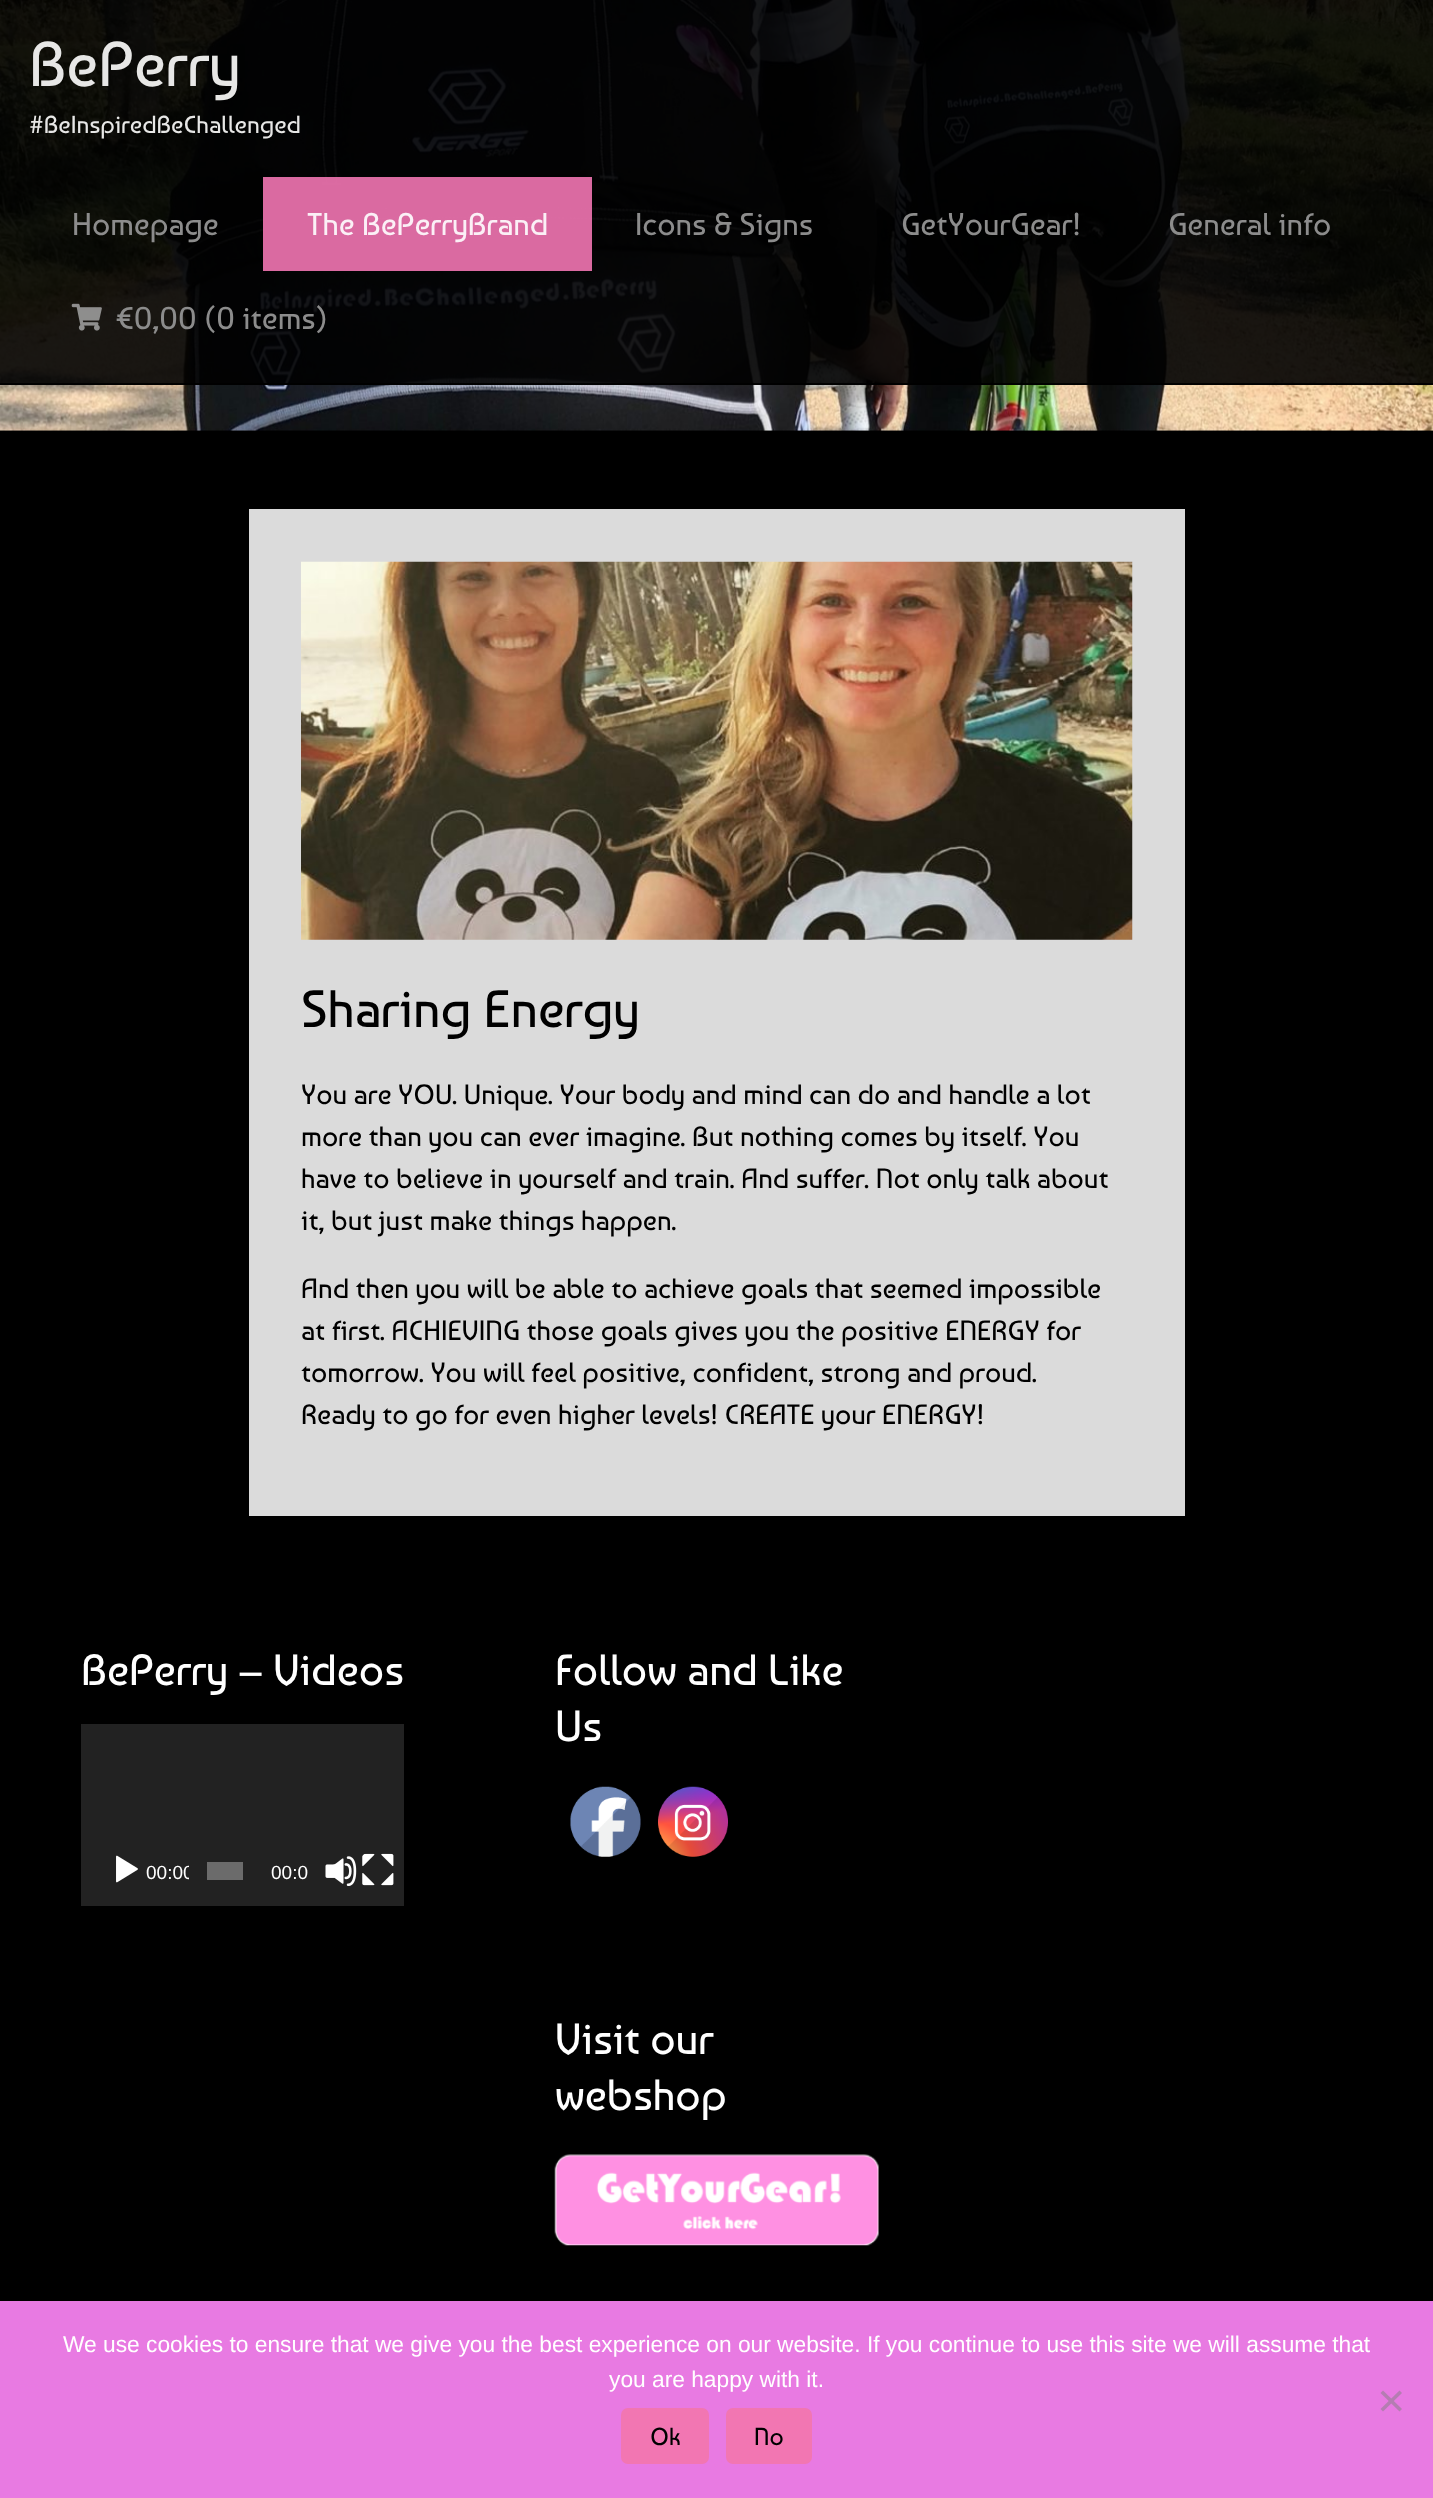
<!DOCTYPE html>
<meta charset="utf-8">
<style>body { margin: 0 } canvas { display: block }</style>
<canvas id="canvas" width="1433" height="2498"></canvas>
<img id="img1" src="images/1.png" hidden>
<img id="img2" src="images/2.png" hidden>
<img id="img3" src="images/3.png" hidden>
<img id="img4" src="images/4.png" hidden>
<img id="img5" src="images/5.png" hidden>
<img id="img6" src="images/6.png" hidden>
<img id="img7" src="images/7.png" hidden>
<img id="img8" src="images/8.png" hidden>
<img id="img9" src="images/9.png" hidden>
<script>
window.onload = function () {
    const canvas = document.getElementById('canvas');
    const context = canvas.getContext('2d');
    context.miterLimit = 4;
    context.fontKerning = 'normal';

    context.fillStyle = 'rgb(0, 0, 0)';
    context.fillRect(0, 0, 1433, 2498);
    context.drawImage(document.getElementById('img1'), 0, 0, 1433, 431);
    context.fillStyle = 'rgba(0, 0, 0, 0.9)';
    context.fillRect(0, 0, 1433, 385);
    context.fillRect(0, 383, 1433, 2);
    context.fillStyle = 'rgba(242, 118, 178, 0.9)';
    context.fillRect(263, 177, 329, 94);
    context.drawImage(document.getElementById('img2'), 71, 303, 31, 28);
    context.fillStyle = 'rgb(219, 219, 219)';
    context.fillRect(249, 509, 936, 1007);
    context.drawImage(document.getElementById('img3'), 301, 561, 832, 379);
    context.fillStyle = 'rgb(34, 34, 34)';
    context.fillRect(81, 1724, 323, 182);
    context.drawImage(document.getElementById('img4'), 116, 1855, 22, 28);
    context.fillStyle = 'rgb(107, 107, 107)';
    context.fillRect(207, 1862, 36, 18);
    context.drawImage(document.getElementById('img5'), 325, 1856, 32, 30);
    context.drawImage(document.getElementById('img6'), 362, 1853, 32, 33);
    context.drawImage(document.getElementById('img7'), 570, 1786, 71, 71);
    context.drawImage(document.getElementById('img8'), 658, 1786, 70, 71);
    context.drawImage(document.getElementById('img9'), 554, 2154, 325, 92);
    context.fillStyle = 'rgb(232, 122, 226)';
    context.fillRect(0, 2301, 1433, 197);
    context.fillStyle = 'rgb(180, 125, 177)';
    context.beginPath();
    context.moveTo(1399.5, 2390.5);
    context.lineTo(1402, 2393);
    context.lineTo(1383, 2411.5);
    context.lineTo(1380.5, 2409);
    context.closePath();
    context.fill();
    context.beginPath();
    context.moveTo(1380.5, 2393);
    context.lineTo(1383, 2390.5);
    context.lineTo(1402, 2409);
    context.lineTo(1399.5, 2411.5);
    context.closePath();
    context.fill();
    context.fillStyle = 'rgb(242, 118, 178)';
    context.beginPath();
    context.roundRect(621, 2408, 88, 56, 7);
    context.fill();
    context.beginPath();
    context.roundRect(726, 2408, 86, 56, 7);
    context.fill();
    context.font = '63px Baumans';
    context.fillStyle = 'rgb(231, 231, 230)';
    context.fillText('BePerry', 29, 86);
    context.font = '24.5px Baumans';
    context.fillText('#BeInspiredBeChallenged', 29, 133);
    context.font = '31.5px Baumans';
    context.fillStyle = 'rgb(140, 140, 140)';
    context.fillText('Homepage', 72, 235);
    context.fillStyle = 'rgb(251, 240, 246)';
    context.fillText('The BePerryBrand', 307, 235);
    context.fillStyle = 'rgb(140, 140, 140)';
    context.fillText('Icons & Signs', 635, 235);
    context.fillText('GetYourGear!', 901, 235);
    context.fillText('General info', 1168, 235);
    context.fillText('€0,00', 117, 329);
    context.fillText('(0 items)', 204, 329);
    context.font = '52.5px Baumans';
    context.fillStyle = 'rgb(0, 0, 0)';
    context.fillText('Sharing Energy', 301, 1027);
    context.font = '28px Baumans';
    context.fillText('You are YOU. Unique. Your body and mind can do and handle a lot', 301, 1104);
    context.fillText('more than you can ever imagine. But nothing comes by itself. You', 301, 1146);
    context.fillText('have to believe in yourself and train. And suffer. Not only talk about', 301, 1188);
    context.fillText('it, but just make things happen.', 301, 1230);
    context.fillText('And then you will be able to achieve goals that seemed impossible', 301, 1298);
    context.fillText('at first. ACHIEVING those goals gives you the positive ENERGY for', 301, 1340);
    context.fillText('tomorrow. You will feel positive, confident, strong and proud.', 301, 1382);
    context.fillText('Ready to go for even higher levels! CREATE your ENERGY!', 301, 1424);
    context.font = '43.75px Baumans';
    context.fillStyle = 'rgb(255, 255, 255)';
    context.fillText('BePerry – Videos', 81, 1685);
    context.save();
    context.beginPath();
    context.rect(137, 1836, 52, 70);
    context.clip();
    context.font = '19px Liberation Sans';
    context.fillText('00:00', 146, 1879);
    context.restore();
    context.font = '19px Liberation Sans';
    context.fillText('00:0', 271, 1879);
    context.font = '43.75px Baumans';
    context.fillText('Follow and Like', 555, 1685);
    context.fillText('Us', 555, 1741);
    context.fillText('Visit our', 555, 2054);
    context.fillText('webshop', 555, 2110);
    context.font = '22.75px Liberation Sans';
    context.fillText('We use cookies to ensure that we give you the best experience on our website. If you continue to use this site we will assume that', 63, 2352);
    context.fillText('you are happy with it.', 609, 2387);
    context.font = '24.5px Baumans';
    context.fillStyle = 'rgb(0, 0, 0)';
    context.fillText('Ok', 650, 2445);
    context.fillText('No', 754, 2445);
};
</script>
